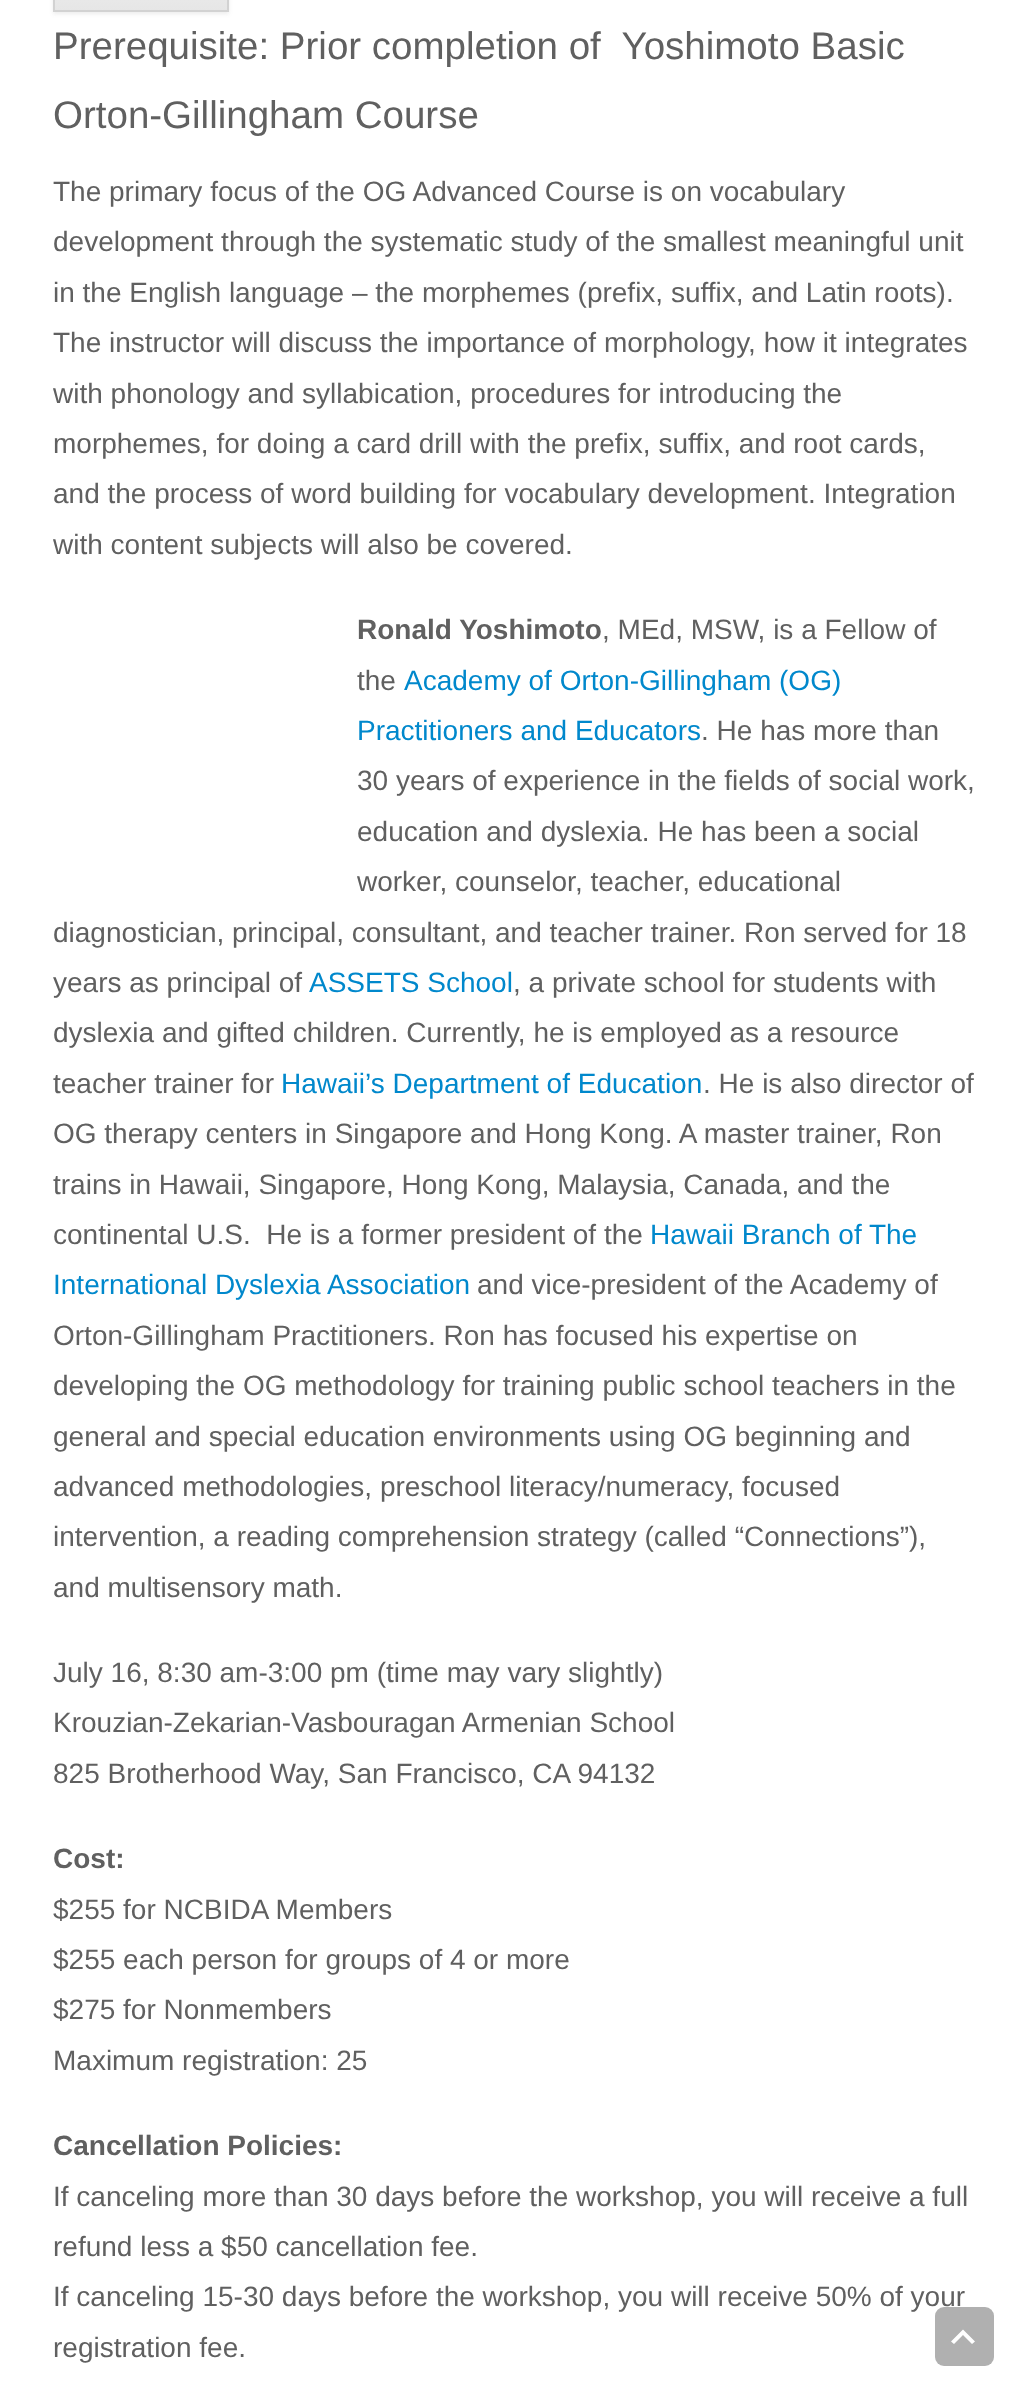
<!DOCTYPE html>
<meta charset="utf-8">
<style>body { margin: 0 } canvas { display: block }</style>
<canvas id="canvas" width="1029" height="2400"></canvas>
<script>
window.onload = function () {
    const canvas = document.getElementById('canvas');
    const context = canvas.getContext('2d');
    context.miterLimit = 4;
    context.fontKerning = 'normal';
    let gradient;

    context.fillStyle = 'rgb(255, 255, 255)';
    context.fillRect(0, 0, 1029, 2400);
    context.fillStyle = 'rgba(64, 64, 64, 0.1)';
    context.filter = 'blur(2px)';
    context.beginPath();
    context.rect(53, -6, 176, 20);
    context.fill();
    context.filter = 'none';
    gradient = context.createLinearGradient(141, -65, 141, 11);
    gradient.addColorStop(0, 'rgb(244, 244, 244)');
    gradient.addColorStop(1, 'rgb(230, 230, 230)');
    context.fillStyle = gradient;
    context.fillRect(55, 0, 172, 10);
    context.strokeStyle = 'rgb(210, 210, 210)';
    context.lineWidth = 2;
    context.strokeRect(54, -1, 174, 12);
    context.font = '38.5px Liberation Sans';
    context.fillStyle = 'rgb(96, 96, 96)';
    context.fillText('Prerequisite: Prior completion of  Yoshimoto Basic', 53, 59);
    context.fillText('Orton-Gillingham Course', 53, 128);
    context.font = '28px Liberation Sans';
    context.fillText('The primary focus of the OG Advanced Course is on vocabulary', 53, 201);
    context.fillText('development through the systematic study of the smallest meaningful unit', 53, 251);
    context.fillText('in the English language – the morphemes (prefix, suffix, and Latin roots).', 53, 302);
    context.fillText('The instructor will discuss the importance of morphology, how it integrates', 53, 352);
    context.fillText('with phonology and syllabication, procedures for introducing the', 53, 403);
    context.fillText('morphemes, for doing a card drill with the prefix, suffix, and root cards,', 53, 453);
    context.fillText('and the process of word building for vocabulary development. Integration', 53, 503);
    context.fillText('with content subjects will also be covered.', 53, 554);
    context.font = 'bold 28px Liberation Sans';
    context.fillText('Ronald Yoshimoto', 357, 639);
    context.font = '28px Liberation Sans';
    context.fillText(', MEd, MSW, is a Fellow of', 602, 639);
    context.fillText('the', 357, 690);
    context.fillStyle = 'rgb(0, 136, 204)';
    context.fillText('Academy of Orton-Gillingham (OG)', 404, 690);
    context.fillText('Practitioners and Educators', 357, 740);
    context.fillStyle = 'rgb(96, 96, 96)';
    context.fillText('. He has more than', 701, 740);
    context.fillText('30 years of experience in the fields of social work,', 357, 790);
    context.fillText('education and dyslexia. He has been a social', 357, 841);
    context.fillText('worker, counselor, teacher, educational', 357, 891);
    context.fillText('diagnostician, principal, consultant, and teacher trainer. Ron served for 18', 53, 942);
    context.fillText('years as principal of', 53, 992);
    context.fillStyle = 'rgb(0, 136, 204)';
    context.fillText('ASSETS School', 309, 992);
    context.fillStyle = 'rgb(96, 96, 96)';
    context.fillText(', a private school for students with', 513, 992);
    context.fillText('dyslexia and gifted children. Currently, he is employed as a resource', 53, 1042);
    context.fillText('teacher trainer for', 53, 1093);
    context.fillStyle = 'rgb(0, 136, 204)';
    context.fillText('Hawaii’s Department of Education', 281, 1093);
    context.fillStyle = 'rgb(96, 96, 96)';
    context.fillText('. He is also director of', 703, 1093);
    context.fillText('OG therapy centers in Singapore and Hong Kong. A master trainer, Ron', 53, 1143);
    context.fillText('trains in Hawaii, Singapore, Hong Kong, Malaysia, Canada, and the', 53, 1194);
    context.fillText('continental U.S.  He is a former president of the', 53, 1244);
    context.fillStyle = 'rgb(0, 136, 204)';
    context.fillText('Hawaii Branch of The', 650, 1244);
    context.fillText('International Dyslexia Association', 53, 1294);
    context.fillStyle = 'rgb(96, 96, 96)';
    context.fillText('and vice-president of the Academy of', 477, 1294);
    context.fillText('Orton-Gillingham Practitioners. Ron has focused his expertise on', 53, 1345);
    context.fillText('developing the OG methodology for training public school teachers in the', 53, 1395);
    context.fillText('general and special education environments using OG beginning and', 53, 1446);
    context.fillText('advanced methodologies, preschool literacy/numeracy, focused', 53, 1496);
    context.fillText('intervention, a reading comprehension strategy (called “Connections”),', 53, 1546);
    context.fillText('and multisensory math.', 53, 1597);
    context.fillText('July 16, 8:30 am-3:00 pm (time may vary slightly)', 53, 1682);
    context.fillText('Krouzian-Zekarian-Vasbouragan Armenian School', 53, 1732);
    context.fillText('825 Brotherhood Way, San Francisco, CA 94132', 53, 1783);
    context.font = 'bold 28px Liberation Sans';
    context.fillText('Cost:', 53, 1868);
    context.font = '28px Liberation Sans';
    context.fillText('$255 for NCBIDA Members', 53, 1919);
    context.fillText('$255 each person for groups of 4 or more', 53, 1969);
    context.fillText('$275 for Nonmembers', 53, 2019);
    context.fillText('Maximum registration: 25', 53, 2070);
    context.font = 'bold 28px Liberation Sans';
    context.fillText('Cancellation Policies:', 53, 2155);
    context.font = '28px Liberation Sans';
    context.fillText('If canceling more than 30 days before the workshop, you will receive a full', 53, 2206);
    context.fillText('refund less a $50 cancellation fee.', 53, 2256);
    context.fillText('If canceling 15-30 days before the workshop, you will receive 50% of your', 53, 2306);
    context.fillText('registration fee.', 53, 2357);
    context.fillStyle = 'rgb(176, 176, 176)';
    context.beginPath();
    context.roundRect(935, 2307, 59, 59, 9);
    context.fill();
    context.fillStyle = 'rgb(255, 255, 255)';
    context.beginPath();
    context.moveTo(972, 2344);
    context.lineTo(963, 2335);
    context.lineTo(954, 2344);
    context.lineTo(951, 2341.5);
    context.lineTo(963, 2329.5);
    context.lineTo(975, 2341.5);
    context.closePath();
    context.fill();
};
</script>
